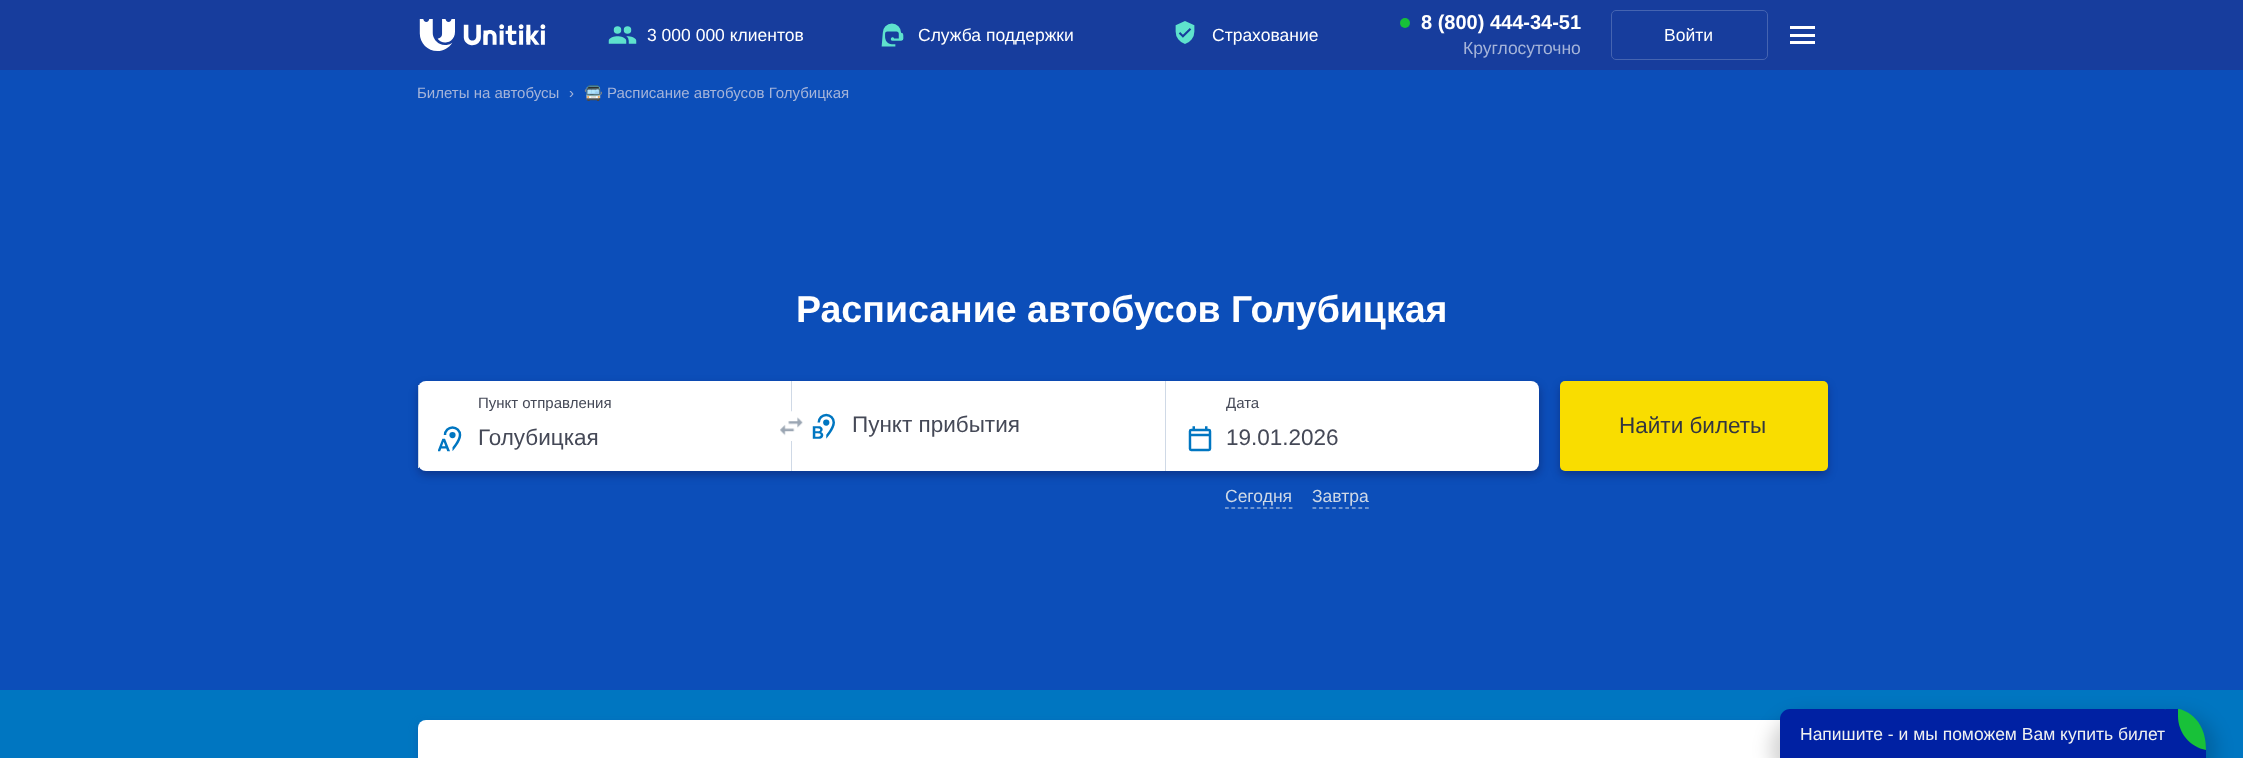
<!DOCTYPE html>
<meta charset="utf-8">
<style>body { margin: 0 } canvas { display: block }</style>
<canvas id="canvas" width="2243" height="758"></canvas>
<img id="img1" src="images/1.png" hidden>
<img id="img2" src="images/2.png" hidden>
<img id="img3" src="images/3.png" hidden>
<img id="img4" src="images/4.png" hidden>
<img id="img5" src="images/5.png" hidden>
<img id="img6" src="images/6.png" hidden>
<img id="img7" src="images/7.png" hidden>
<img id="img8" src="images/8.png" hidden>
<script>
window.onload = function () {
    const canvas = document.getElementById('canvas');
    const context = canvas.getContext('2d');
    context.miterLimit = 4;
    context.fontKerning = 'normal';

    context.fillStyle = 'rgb(0, 118, 193)';
    context.fillRect(0, 0, 2243, 758);
    context.fillStyle = 'rgb(23, 61, 157)';
    context.fillRect(0, 0, 2243, 70);
    context.drawImage(document.getElementById('img1'), 419, 19, 127, 32);
    context.drawImage(document.getElementById('img2'), 608, 26, 29, 18);
    context.drawImage(document.getElementById('img3'), 881, 23, 23, 24);
    context.drawImage(document.getElementById('img4'), 1175, 21, 20, 23);
    context.fillStyle = 'rgb(23, 192, 57)';
    context.beginPath();
    context.arc(1405, 23, 5, 0, 2 * Math.PI);
    context.fill();
    context.beginPath();
    context.roundRect(1611.5, 10.5, 156, 49, 4.5);
    context.strokeStyle = 'rgb(69, 100, 177)';
    context.stroke();
    context.fillStyle = 'rgb(255, 255, 255)';
    context.fillRect(1790, 34, 25, 3);
    context.fillRect(1790, 26, 25, 3);
    context.fillRect(1790, 41, 25, 3);
    context.fillStyle = 'rgb(12, 78, 185)';
    context.fillRect(0, 70, 2243, 620);
    context.fillStyle = 'rgba(13, 7, 52, 0.33)';
    context.filter = 'blur(4px)';
    context.beginPath();
    context.roundRect(418, 385, 1122, 90, 8);
    context.fill();
    context.filter = 'none';
    context.fillStyle = 'rgb(255, 255, 255)';
    context.beginPath();
    context.roundRect(418, 381, 373, 90, [8, 0, 0, 8]);
    context.fill();
    context.drawImage(document.getElementById('img5'), 438, 426, 24, 26);
    context.fillStyle = 'rgb(207, 217, 230)';
    context.fillRect(418, 385, 1, 83);
    context.fillStyle = 'rgb(255, 255, 255)';
    context.fillRect(792, 381, 373, 90);
    context.fillStyle = 'rgb(207, 217, 230)';
    context.fillRect(791, 381, 1, 90);
    context.drawImage(document.getElementById('img6'), 780, 411, 23, 30);
    context.drawImage(document.getElementById('img7'), 812, 413, 23, 26);
    context.fillStyle = 'rgb(255, 255, 255)';
    context.beginPath();
    context.roundRect(1165, 381, 374, 90, [0, 8, 8, 0]);
    context.fill();
    context.drawImage(document.getElementById('img8'), 1188, 426, 24, 26);
    context.fillStyle = 'rgb(207, 217, 230)';
    context.fillRect(1165, 381, 1, 90);
    context.beginPath();
    context.moveTo(1225, 508);
    context.lineTo(1292.5, 508);
    context.strokeStyle = 'rgb(207, 217, 230)';
    context.lineWidth = 1.2;
    context.setLineDash([3.75, 2.62]);
    context.stroke();
    context.beginPath();
    context.moveTo(1312.5, 508);
    context.lineTo(1369, 508);
    context.setLineDash([3.75, 2.81]);
    context.stroke();
    context.fillStyle = 'rgba(13, 7, 52, 0.33)';
    context.filter = 'blur(4px)';
    context.beginPath();
    context.roundRect(1560, 385, 268, 90, 5);
    context.fill();
    context.filter = 'none';
    context.fillStyle = 'rgb(249, 221, 0)';
    context.beginPath();
    context.roundRect(1560, 381, 268, 90, 5);
    context.fill();
    context.fillStyle = 'rgb(9, 98, 177)';
    context.filter = 'blur(4px)';
    context.beginPath();
    context.roundRect(418, 724, 1410, 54, 8);
    context.fill();
    context.filter = 'none';
    context.fillStyle = 'rgb(255, 255, 255)';
    context.beginPath();
    context.roundRect(418, 720, 1410, 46, 8);
    context.fill();
    context.fillStyle = 'rgba(0, 0, 0, 0.17)';
    context.filter = 'blur(9px)';
    context.beginPath();
    context.roundRect(1770, 714, 446, 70, 53);
    context.fill();
    context.filter = 'none';
    context.fillStyle = 'rgb(0, 33, 163)';
    context.beginPath();
    context.moveTo(1790, 709);
    context.lineTo(2163, 709);
    context.bezierCurveTo(2186.5, 709, 2206, 728.5, 2206, 752);
    context.lineTo(2206, 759);
    context.lineTo(1780, 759);
    context.lineTo(1780, 719);
    context.bezierCurveTo(1780, 713.5, 1784.5, 709, 1790, 709);
    context.closePath();
    context.fill();
    context.save();
    context.beginPath();
    context.rect(2166, 709, 40, 42);
    context.clip();
    context.beginPath();
    context.moveTo(2166, 709);
    context.lineTo(2178, 709);
    context.lineTo(2206, 750);
    context.lineTo(2206, 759);
    context.lineTo(2166, 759);
    context.closePath();
    context.fill('evenodd');
    context.restore();
    context.fillStyle = 'rgb(24, 193, 57)';
    context.beginPath();
    context.moveTo(2178, 709);
    context.bezierCurveTo(2182, 709, 2206, 716, 2206, 750);
    context.bezierCurveTo(2190, 747, 2178, 733, 2178, 716);
    context.closePath();
    context.fill('evenodd');
    context.font = '17.5px Liberation Sans';
    context.fillStyle = 'rgb(255, 255, 255)';
    context.fillText('3 000 000 клиентов', 647, 41);
    context.fillText('Служба поддержки', 918, 41);
    context.fillText('Страхование', 1212, 41);
    context.font = 'bold 20px Liberation Sans';
    context.fillText('8 (800) 444-34-51', 1421, 29);
    context.font = '17.5px Liberation Sans';
    context.fillStyle = 'rgb(165, 180, 217)';
    context.fillText('Круглосуточно', 1463, 54);
    context.fillStyle = 'rgb(255, 255, 255)';
    context.fillText('Войти', 1664, 41);
    context.font = '15px Liberation Sans';
    context.fillStyle = 'rgb(165, 180, 217)';
    context.fillText('Билеты на автобусы', 417, 98);
    context.fillText('›', 569, 98);
    context.font = '15px Noto Color Emoji';
    context.fillText('🚍', 584, 98);
    context.font = '15px Liberation Sans';
    context.fillText('Расписание автобусов Голубицкая', 607, 98);
    context.font = 'bold 37.5px Liberation Sans';
    context.fillStyle = 'rgb(255, 255, 255)';
    context.fillText('Расписание автобусов Голубицкая', 796, 322);
    context.font = '15px Liberation Sans';
    context.fillStyle = 'rgb(69, 73, 87)';
    context.fillText('Пункт отправления', 478, 408);
    context.font = '22.5px Liberation Sans';
    context.fillText('Голубицкая', 478, 445);
    context.fillText('Пункт прибытия', 852, 432);
    context.font = '15px Liberation Sans';
    context.fillText('Дата', 1226, 408);
    context.font = '22.5px Liberation Sans';
    context.fillText('19.01.2026', 1226, 445);
    context.font = '17.5px Liberation Sans';
    context.fillStyle = 'rgb(207, 217, 230)';
    context.fillText('Сегодня', 1225, 502);
    context.fillText('Завтра', 1312, 502);
    context.font = '22.5px Liberation Sans';
    context.fillStyle = 'rgb(51, 54, 64)';
    context.fillText('Найти билеты', 1619, 433);
    context.font = '17.5px Liberation Sans';
    context.fillStyle = 'rgb(240, 241, 241)';
    context.fillText('Напишите - и мы поможем Вам купить билет', 1800, 740);
};
</script>
